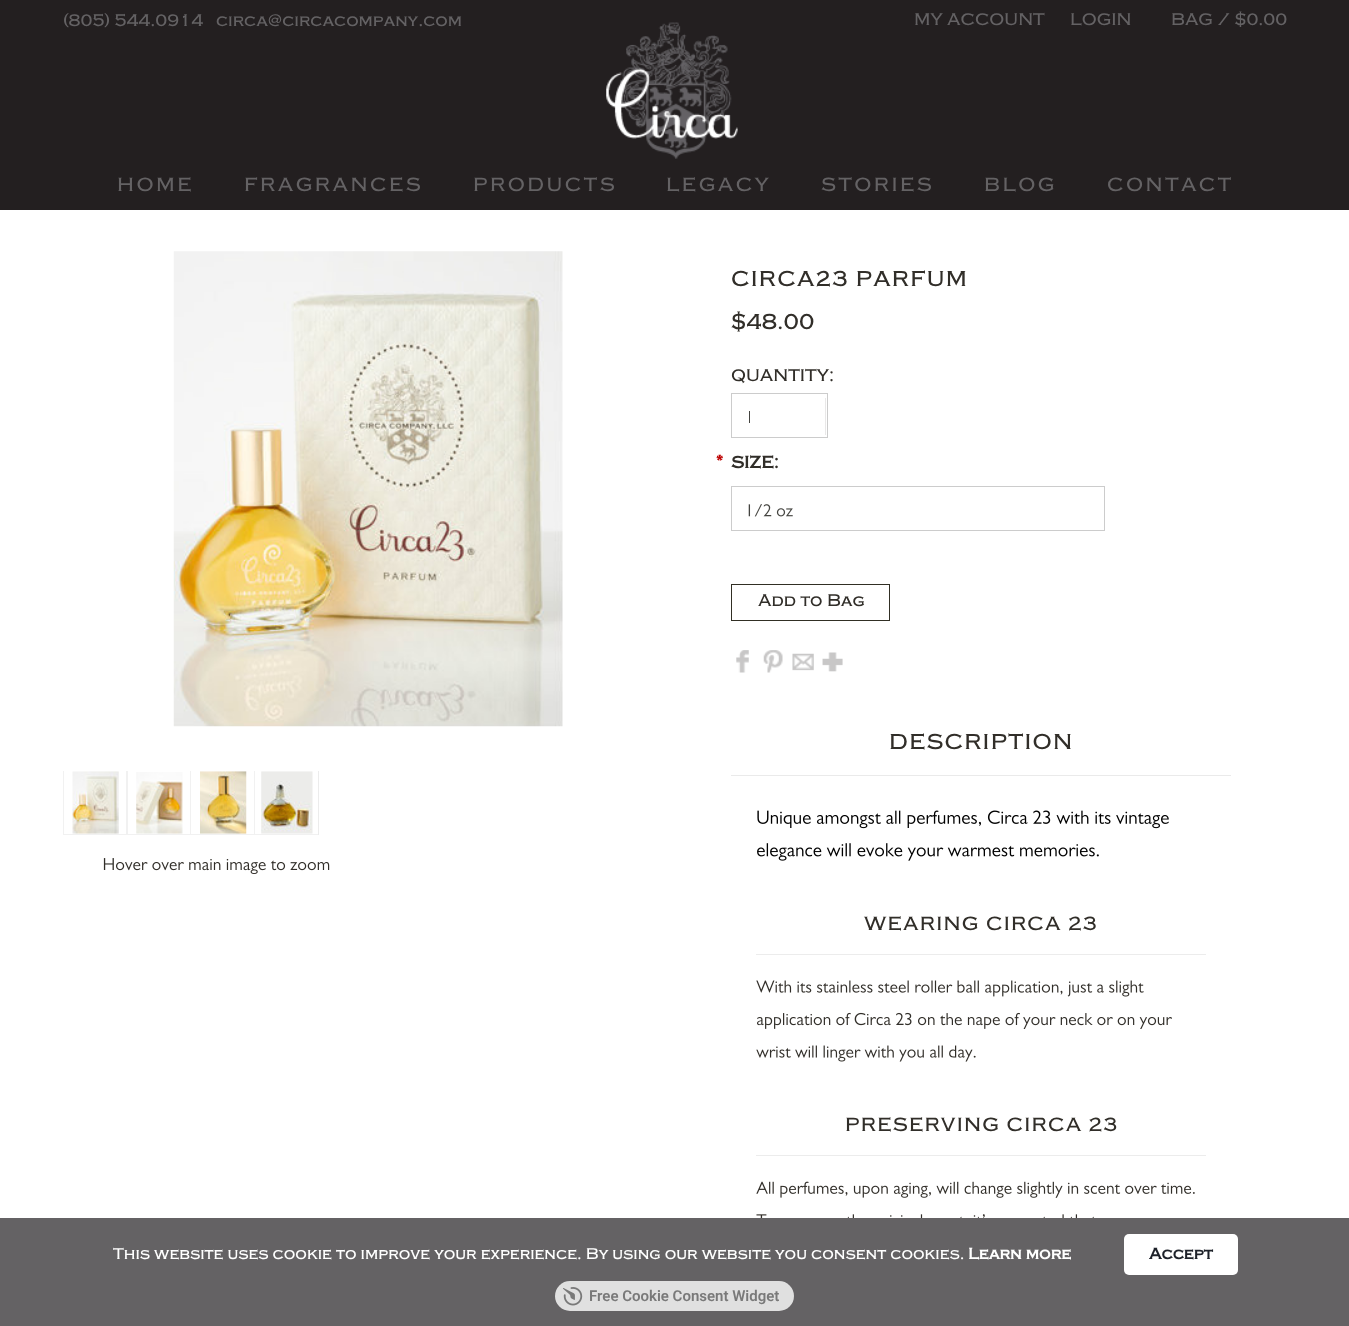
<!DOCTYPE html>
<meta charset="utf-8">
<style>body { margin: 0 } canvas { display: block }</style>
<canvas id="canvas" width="1349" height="1326"></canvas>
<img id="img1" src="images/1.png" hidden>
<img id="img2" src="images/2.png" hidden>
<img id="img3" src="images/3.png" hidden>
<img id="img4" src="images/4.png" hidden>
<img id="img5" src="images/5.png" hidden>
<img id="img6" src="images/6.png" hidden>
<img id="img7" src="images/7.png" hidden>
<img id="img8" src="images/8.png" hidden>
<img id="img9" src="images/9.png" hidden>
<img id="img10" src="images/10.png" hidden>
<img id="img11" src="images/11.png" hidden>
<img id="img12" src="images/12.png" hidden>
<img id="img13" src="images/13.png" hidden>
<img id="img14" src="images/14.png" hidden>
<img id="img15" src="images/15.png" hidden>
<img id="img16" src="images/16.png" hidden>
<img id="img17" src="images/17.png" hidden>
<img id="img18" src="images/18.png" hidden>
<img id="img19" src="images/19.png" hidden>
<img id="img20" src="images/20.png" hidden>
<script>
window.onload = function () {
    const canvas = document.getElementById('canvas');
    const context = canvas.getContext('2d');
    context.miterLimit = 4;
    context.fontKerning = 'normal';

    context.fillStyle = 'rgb(255, 255, 255)';
    context.fillRect(0, 0, 1349, 1326);
    context.fillStyle = 'rgb(35, 31, 32)';
    context.fillRect(0, 0, 1349, 210);
    context.drawImage(document.getElementById('img1'), 606, 22, 132, 137);
    context.drawImage(document.getElementById('img2'), 173, 251, 390, 476);
    context.fillStyle = 'rgb(236, 236, 236)';
    context.fillRect(318, 771, 1, 64);
    context.save();
    context.beginPath();
    context.rect(63, 771, 255, 64);
    context.clip();
    context.strokeStyle = 'rgb(241, 241, 241)';
    context.strokeRect(63.5, 770.5, 64, 64);
    context.restore();
    context.drawImage(document.getElementById('img3'), 72, 771, 47, 63);
    context.save();
    context.beginPath();
    context.rect(63, 771, 255, 64);
    context.clip();
    context.strokeStyle = 'rgb(241, 241, 241)';
    context.strokeRect(126.5, 770.5, 64, 64);
    context.restore();
    context.drawImage(document.getElementById('img4'), 136, 772, 47, 62);
    context.save();
    context.beginPath();
    context.rect(63, 771, 255, 64);
    context.clip();
    context.strokeStyle = 'rgb(241, 241, 241)';
    context.strokeRect(190.5, 770.5, 64, 64);
    context.restore();
    context.drawImage(document.getElementById('img5'), 200, 771, 47, 63);
    context.save();
    context.beginPath();
    context.rect(63, 771, 255, 64);
    context.clip();
    context.strokeStyle = 'rgb(241, 241, 241)';
    context.strokeRect(254.5, 770.5, 64, 64);
    context.restore();
    context.drawImage(document.getElementById('img6'), 261, 771, 52, 63);
    context.drawImage(document.getElementById('img7'), 103, 858, 227, 16);
    context.strokeStyle = 'rgb(204, 204, 204)';
    context.strokeRect(731.5, 393.5, 96, 44);
    context.fillStyle = 'rgb(233, 232, 232)';
    context.fillRect(825, 398, 1, 37);
    context.fillStyle = 'rgb(68, 68, 64)';
    context.fillRect(749, 411, 1, 12);
    context.strokeRect(731.5, 486.5, 373, 44);
    context.drawImage(document.getElementById('img8'), 748, 504, 45, 13);
    context.strokeStyle = 'rgb(49, 47, 36)';
    context.strokeRect(731.5, 584.5, 158, 36);
    context.drawImage(document.getElementById('img9'), 736, 650, 13, 23);
    context.drawImage(document.getElementById('img10'), 763, 650, 20, 23);
    context.drawImage(document.getElementById('img11'), 792, 653, 22, 18);
    context.drawImage(document.getElementById('img12'), 822, 652, 21, 20);
    context.fillStyle = 'rgb(234, 234, 234)';
    context.fillRect(731, 775, 500, 1);
    context.drawImage(document.getElementById('img13'), 757, 810, 412, 19);
    context.drawImage(document.getElementById('img14'), 757, 843, 342, 18);
    context.fillStyle = 'rgb(236, 236, 236)';
    context.fillRect(756, 954, 450, 1);
    context.drawImage(document.getElementById('img15'), 756, 980, 388, 17);
    context.drawImage(document.getElementById('img16'), 757, 1012, 415, 17);
    context.drawImage(document.getElementById('img17'), 756, 1045, 220, 17);
    context.fillRect(756, 1155, 450, 1);
    context.drawImage(document.getElementById('img18'), 756, 1181, 439, 17);
    context.drawImage(document.getElementById('img19'), 756, 1214, 338, 4);
    context.fillStyle = 'rgb(100, 98, 100)';
    context.fillRect(0, 1218, 1349, 108);
    context.fillStyle = 'rgb(255, 255, 255)';
    context.beginPath();
    context.roundRect(1124, 1234, 114, 41, 5);
    context.fill();
    context.fillStyle = 'rgb(224, 224, 224)';
    context.beginPath();
    context.roundRect(555, 1281, 239, 30, 15);
    context.fill();
    context.drawImage(document.getElementById('img20'), 563, 1287, 20, 19);
    context.font = '17.5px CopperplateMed';
    context.fillStyle = 'rgb(100, 98, 100)';
    context.fillText('(805) 544.0914', 63, 26);
    context.fillText('circa@circacompany.com', 216, 26);
    context.fillText('MY ACCOUNT', 914, 25);
    context.fillText('LOGIN', 1070, 25);
    context.fillText('BAG / $0.00', 1171, 25);
    context.letterSpacing = '2.5px';
    context.font = '20px CopperplateMed';
    context.fillText('HOME', 117, 191);
    context.fillText('FRAGRANCES', 244, 191);
    context.fillText('PRODUCTS', 473, 191);
    context.fillText('LEGACY', 666, 191);
    context.fillText('STORIES', 821, 191);
    context.fillText('BLOG', 984, 191);
    context.fillText('CONTACT', 1107, 191);
    context.letterSpacing = '1.25px';
    context.font = '22.5px CopperplateMed';
    context.fillStyle = 'rgb(49, 46, 41)';
    context.fillText('CIRCA23 PARFUM', 731, 286);
    context.letterSpacing = '0px';
    context.fillText('$48.00', 731, 329);
    context.font = '17.5px CopperplateMed';
    context.fillText('QUANTITY:', 731, 381);
    context.font = 'bold 17.5px CopperplateMed';
    context.fillStyle = 'rgb(190, 3, 3)';
    context.fillText('*', 716, 468);
    context.fillStyle = 'rgb(49, 46, 41)';
    context.fillText('SIZE:', 731, 468);
    context.font = '17.5px CopperplateMed';
    context.fillText('Add to Bag', 758, 606);
    context.letterSpacing = '1.25px';
    context.font = '22.5px CopperplateMed';
    context.fillText('DESCRIPTION', 889, 749);
    context.font = '20px CopperplateMed';
    context.fillText('WEARING CIRCA 23', 864, 930);
    context.fillText('PRESERVING CIRCA 23', 845, 1131);
    context.letterSpacing = '0px';
    context.font = '16.25px CopperplateMed';
    context.fillStyle = 'rgb(255, 255, 255)';
    context.fillText('This website uses cookie to improve your experience. By using our website you consent cookies.', 113, 1259);
    context.font = 'bold 16.25px CopperplateMed';
    context.fillText('Learn more', 968, 1259);
    context.fillStyle = 'rgb(29, 33, 41)';
    context.fillText('Accept', 1149, 1259);
    context.font = '600 15px Roboto';
    context.fillStyle = 'rgb(121, 121, 121)';
    context.fillText('Free Cookie Consent Widget', 589, 1301);
};
</script>
